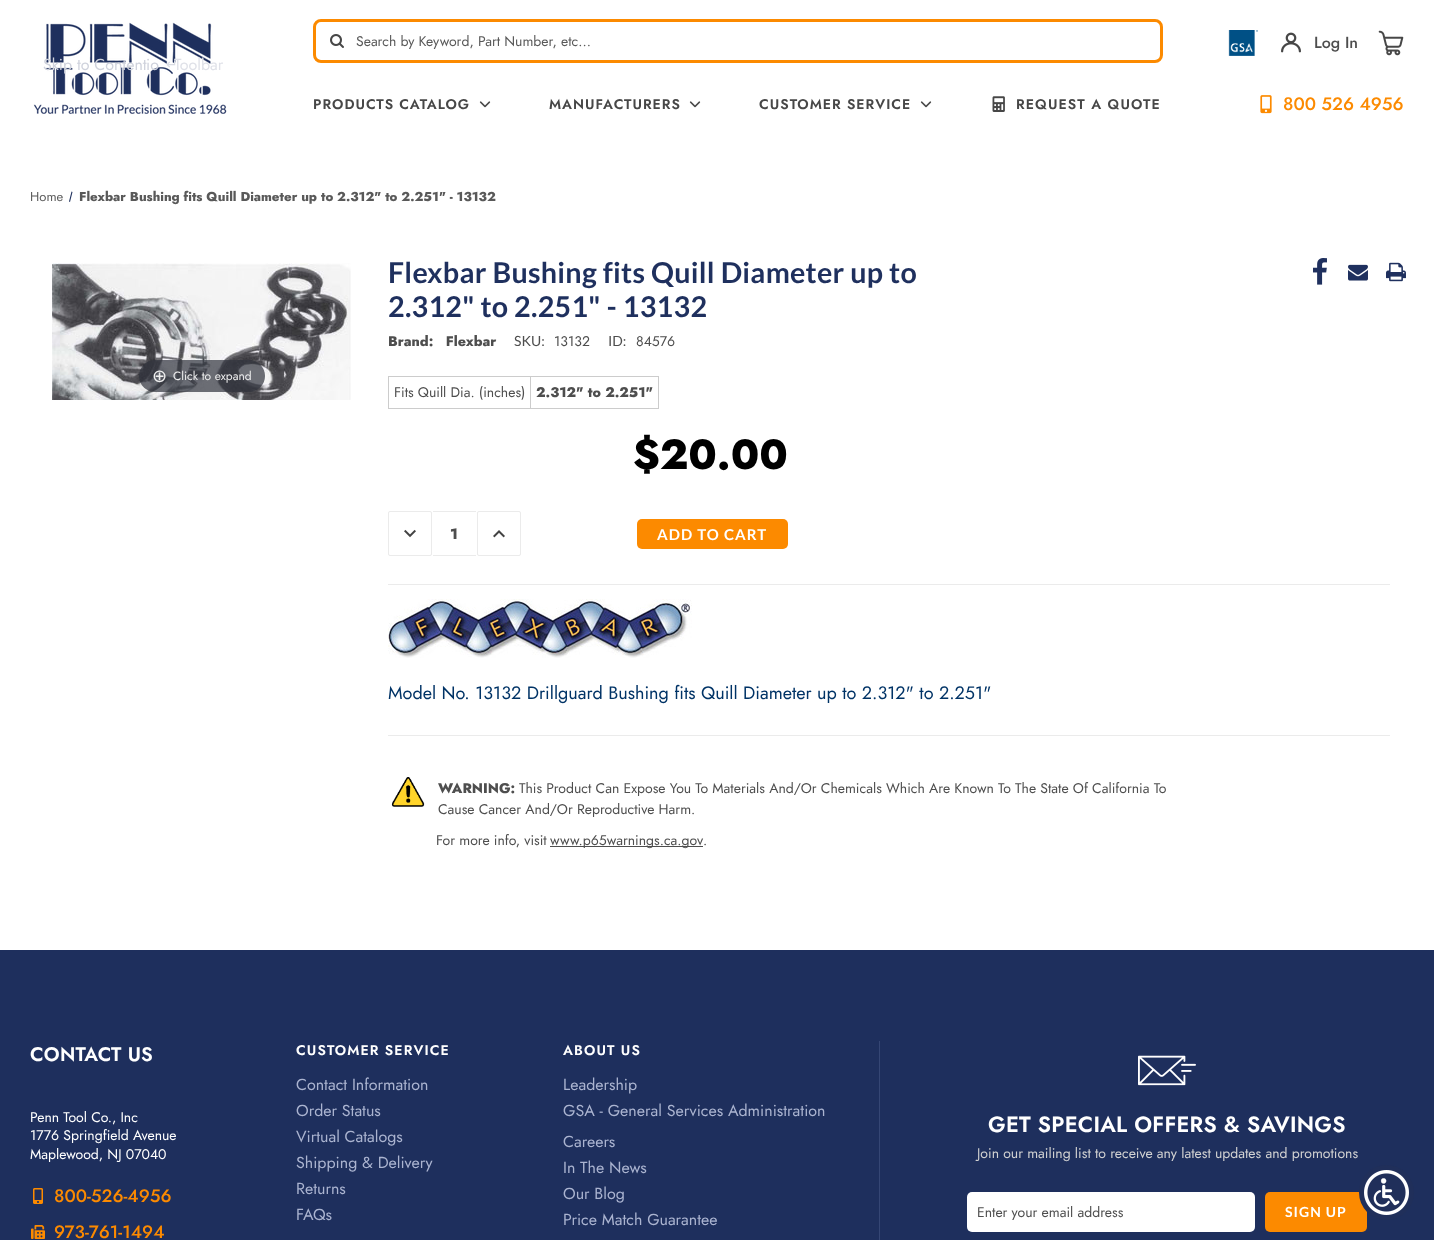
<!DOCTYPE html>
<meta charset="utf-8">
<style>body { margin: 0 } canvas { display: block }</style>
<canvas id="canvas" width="1434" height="1240"></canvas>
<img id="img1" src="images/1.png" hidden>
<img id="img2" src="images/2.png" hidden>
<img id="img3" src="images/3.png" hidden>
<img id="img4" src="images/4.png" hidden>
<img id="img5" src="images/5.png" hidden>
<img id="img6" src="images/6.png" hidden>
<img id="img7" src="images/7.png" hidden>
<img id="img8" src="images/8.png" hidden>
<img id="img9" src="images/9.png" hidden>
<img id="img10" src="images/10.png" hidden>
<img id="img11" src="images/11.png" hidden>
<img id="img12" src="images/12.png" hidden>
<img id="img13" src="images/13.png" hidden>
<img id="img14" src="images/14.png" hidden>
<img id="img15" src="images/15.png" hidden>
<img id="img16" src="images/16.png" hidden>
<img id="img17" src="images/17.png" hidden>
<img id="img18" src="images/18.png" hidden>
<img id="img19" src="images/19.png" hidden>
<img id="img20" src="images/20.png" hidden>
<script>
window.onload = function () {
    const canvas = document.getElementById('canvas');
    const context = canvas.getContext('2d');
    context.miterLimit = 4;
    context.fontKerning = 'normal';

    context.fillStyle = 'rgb(255, 255, 255)';
    context.fillRect(0, 0, 1434, 1240);
    context.fillStyle = 'rgb(30, 47, 93)';
    context.fillRect(0, 950, 1434, 290);
    context.fillStyle = 'rgb(252, 138, 0)';
    context.beginPath();
    context.roundRect(1265, 1192, 102, 40, 5);
    context.fill();
    context.fillStyle = 'rgb(32, 47, 90)';
    context.beginPath();
    context.arc(1386.5, 1192.5, 27.5, 0, 2 * Math.PI);
    context.fill();
    context.drawImage(document.getElementById('img1'), 1364, 1170, 45, 45);
    context.drawImage(document.getElementById('img2'), 33, 22, 194, 92);
    context.beginPath();
    context.roundRect(314.5, 20.5, 847, 41, 6.5);
    context.strokeStyle = 'rgb(252, 138, 0)';
    context.lineWidth = 3;
    context.stroke();
    context.drawImage(document.getElementById('img3'), 330, 34, 14, 14);
    context.drawImage(document.getElementById('img4'), 1228, 30, 30, 26);
    context.drawImage(document.getElementById('img5'), 1281, 32, 20, 21);
    context.drawImage(document.getElementById('img6'), 1378, 30, 26, 26);
    context.drawImage(document.getElementById('img7'), 479, 101, 12, 7);
    context.drawImage(document.getElementById('img7'), 689, 101, 12, 7);
    context.drawImage(document.getElementById('img7'), 920, 101, 12, 7);
    context.drawImage(document.getElementById('img8'), 992, 96, 13, 16);
    context.drawImage(document.getElementById('img9'), 1260, 95, 12, 19);
    context.fillStyle = 'rgb(31, 48, 94)';
    context.beginPath();
    context.moveTo(71.5, 191.5);
    context.lineTo(72.5, 192);
    context.lineTo(70, 202);
    context.lineTo(69, 201.5);
    context.closePath();
    context.fill();
    context.drawImage(document.getElementById('img10'), 52, 263, 299, 137);
    context.fillStyle = 'rgba(49, 51, 61, 0.7)';
    context.beginPath();
    context.roundRect(139, 360, 126, 32, 16);
    context.fill();
    context.fillStyle = 'rgb(204, 204, 204)';
    context.fillRect(388, 376, 271, 1);
    context.fillRect(658, 376, 1, 33);
    context.fillRect(388, 408, 271, 1);
    context.fillRect(388, 376, 1, 33);
    context.fillRect(530, 376, 1, 33);
    context.drawImage(document.getElementById('img11'), 1313, 258, 14, 27);
    context.drawImage(document.getElementById('img12'), 1348, 264, 20, 17);
    context.drawImage(document.getElementById('img13'), 1386, 262, 20, 20);
    context.beginPath();
    context.roundRect(388.5, 511.5, 43, 44, 1.5);
    context.strokeStyle = 'rgb(235, 235, 235)';
    context.lineWidth = 1;
    context.stroke();
    context.drawImage(document.getElementById('img14'), 404, 529, 12, 9);
    context.fillStyle = 'rgb(235, 235, 235)';
    context.fillRect(433, 511, 43, 1);
    context.fillRect(433, 555, 43, 1);
    context.beginPath();
    context.roundRect(477.5, 511.5, 43, 44, 1.5);
    context.stroke();
    context.drawImage(document.getElementById('img15'), 493, 530, 12, 8);
    context.fillStyle = 'rgb(252, 138, 0)';
    context.beginPath();
    context.roundRect(637, 519, 151, 30, 5);
    context.fill();
    context.fillStyle = 'rgb(235, 235, 235)';
    context.fillRect(388, 584, 1002, 1);
    context.drawImage(document.getElementById('img16'), 388, 599, 304, 59);
    context.fillRect(388, 735, 1002, 1);
    context.drawImage(document.getElementById('img17'), 391, 777, 34, 30);
    context.fillStyle = 'rgb(78, 78, 78)';
    context.fillRect(550, 846, 153, 1);
    context.drawImage(document.getElementById('img18'), 33, 1188, 10, 16);
    context.drawImage(document.getElementById('img19'), 31, 1225, 14, 14);
    context.fillStyle = 'rgb(53, 70, 116)';
    context.fillRect(879, 1041, 1, 199);
    context.drawImage(document.getElementById('img20'), 1138, 1055, 58, 31);
    context.fillStyle = 'rgb(255, 255, 255)';
    context.beginPath();
    context.roundRect(967, 1192, 288, 40, 5);
    context.fill();
    context.font = '16px Jost';
    context.fillStyle = 'rgb(207, 210, 220)';
    context.fillText('Skip to Content', 43, 70);
    context.fillText('io', 146, 70);
    context.fillStyle = 'rgb(223, 225, 232)';
    context.fillText('Toolbar', 174, 70);
    context.font = '14px DejaVu Sans';
    context.fillStyle = 'rgb(217, 220, 227)';
    context.fillText('↵', 166, 69);
    context.font = '14px Jost';
    context.fillStyle = 'rgb(89, 89, 89)';
    context.fillText('Search by Keyword, Part Number, etc...', 356, 46);
    context.font = '500 16px Jost';
    context.fillStyle = 'rgb(78, 78, 78)';
    context.fillText('Log In', 1314, 48);
    context.letterSpacing = '1px';
    context.font = '600 14px Jost';
    context.fillStyle = 'rgb(71, 71, 71)';
    context.fillText('PRODUCTS CATALOG', 313, 109);
    context.fillText('MANUFACTURERS', 549, 109);
    context.fillText('CUSTOMER SERVICE', 759, 109);
    context.letterSpacing = '1.1px';
    context.fillText('REQUEST A QUOTE', 1016, 109);
    context.letterSpacing = '0px';
    context.font = '500 18px Jost';
    context.fillStyle = 'rgb(252, 138, 0)';
    context.fillText('800 526 4956', 1283, 110);
    context.font = '13px Jost';
    context.fillStyle = 'rgb(89, 89, 89)';
    context.fillText('Home', 30, 201);
    context.font = '800 13px Jost';
    context.fillText('Flexbar Bushing fits Quill Diameter up to 2.312" to 2.251" - 13132', 79, 201);
    context.font = '18px DejaVu Sans';
    context.fillStyle = 'rgb(238, 238, 238)';
    context.fillText('⊕', 152, 382);
    context.font = '12px Jost';
    context.fillText('Click to expand', 173, 380);
    context.letterSpacing = '0.25px';
    context.font = 'bold 28.7px Lato';
    context.fillStyle = 'rgb(31, 48, 94)';
    context.fillText('Flexbar Bushing fits Quill Diameter up to', 388, 283);
    context.fillText('2.312" to 2.251" - 13132', 388, 317);
    context.letterSpacing = '0px';
    context.font = '800 14px Jost';
    context.fillStyle = 'rgb(78, 78, 78)';
    context.fillText('Brand:   Flexbar', 388, 346);
    context.font = '14px Lato';
    context.fillText('SKU:', 514, 346);
    context.font = '14px Jost';
    context.fillText('13132', 554, 346);
    context.font = '14px Lato';
    context.fillText('ID:', 608, 346);
    context.font = '14px Jost';
    context.fillText('84576', 636, 346);
    context.fillText('Fits Quill Dia. (inches)', 394, 397);
    context.font = '800 14px Jost';
    context.fillText('2.312" to 2.251"', 536, 397);
    context.font = '800 42px Jost';
    context.fillStyle = 'rgb(0, 0, 0)';
    context.fillText('$20.00', 633, 469);
    context.font = '800 15px Jost';
    context.fillStyle = 'rgb(78, 78, 78)';
    context.fillText('1', 450, 539);
    context.letterSpacing = '1.1px';
    context.font = 'bold 15px Lato';
    context.fillStyle = 'rgb(255, 255, 255)';
    context.fillText('ADD TO CART', 657, 540);
    context.letterSpacing = '0px';
    context.font = '18px Jost';
    context.fillStyle = 'rgb(0, 51, 102)';
    context.fillText('Model No. 13132 Drillguard Bushing fits Quill Diameter up to 2.312" to 2.251"', 388, 699);
    context.font = '800 14px Jost';
    context.fillStyle = 'rgb(78, 78, 78)';
    context.fillText('WARNING:', 438, 793);
    context.font = '14px Jost';
    context.fillText('This Product Can Expose You To Materials And/Or Chemicals Which Are Known To The State Of California To', 519, 793);
    context.fillText('Cause Cancer And/Or Reproductive Harm.', 438, 814);
    context.fillText('For more info, visit', 436, 845);
    context.fillText('www.p65warnings.ca.gov', 550, 845);
    context.fillText('.', 703, 845);
    context.letterSpacing = '0.25px';
    context.font = '600 19.5px Jost';
    context.fillStyle = 'rgb(255, 255, 255)';
    context.fillText('CONTACT US', 30, 1061);
    context.letterSpacing = '0px';
    context.font = '14px Jost';
    context.fillText('Penn Tool Co., Inc', 30, 1122);
    context.fillText('1776 Springfield Avenue', 30, 1140);
    context.fillText('Maplewood, NJ 07040', 30, 1159);
    context.font = '500 18px Jost';
    context.fillStyle = 'rgb(252, 138, 0)';
    context.fillText('800-526-4956', 54, 1202);
    context.fillText('973-761-1494', 54, 1238);
    context.letterSpacing = '1.1px';
    context.font = '600 14px Jost';
    context.fillStyle = 'rgb(255, 255, 255)';
    context.fillText('CUSTOMER SERVICE', 296, 1055);
    context.letterSpacing = '0px';
    context.font = '16px Jost';
    context.fillStyle = 'rgb(171, 180, 208)';
    context.fillText('Contact Information', 296, 1090);
    context.fillText('Order Status', 296, 1116);
    context.fillText('Virtual Catalogs', 296, 1142);
    context.fillText('Shipping & Delivery', 296, 1168);
    context.fillText('Returns', 296, 1194);
    context.fillText('FAQs', 296, 1220);
    context.letterSpacing = '1.1px';
    context.font = '600 14px Jost';
    context.fillStyle = 'rgb(255, 255, 255)';
    context.fillText('ABOUT US', 563, 1055);
    context.letterSpacing = '0px';
    context.font = '16px Jost';
    context.fillStyle = 'rgb(171, 180, 208)';
    context.fillText('Leadership', 563, 1090);
    context.fillText('GSA - General Services Administration', 563, 1116);
    context.fillText('Careers', 563, 1147);
    context.fillText('In The News', 563, 1173);
    context.fillText('Our Blog', 563, 1199);
    context.fillText('Price Match Guarantee', 563, 1225);
    context.letterSpacing = '0.25px';
    context.font = '600 22px Jost';
    context.fillStyle = 'rgb(255, 255, 255)';
    context.fillText('GET SPECIAL OFFERS & SAVINGS', 988, 1132);
    context.letterSpacing = '0px';
    context.font = '14px Jost';
    context.fillStyle = 'rgb(210, 210, 210)';
    context.fillText('Join our mailing list to receive any latest updates and promotions', 977, 1158);
    context.fillStyle = 'rgb(78, 78, 78)';
    context.fillText('Enter your email address', 977, 1217);
    context.letterSpacing = '1.1px';
    context.font = 'bold 14px Lato';
    context.fillStyle = 'rgb(255, 255, 255)';
    context.fillText('SIGN UP', 1285, 1217);
};
</script>
